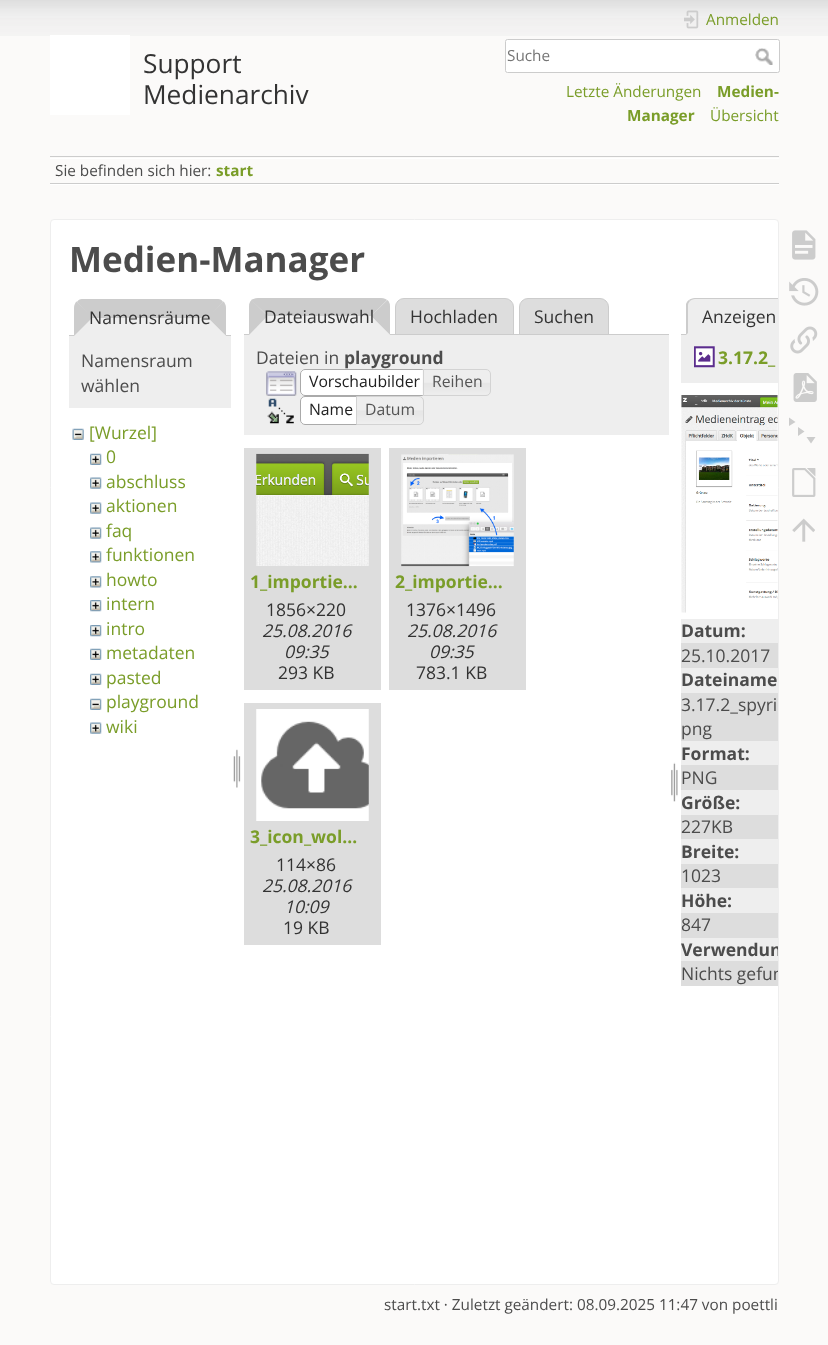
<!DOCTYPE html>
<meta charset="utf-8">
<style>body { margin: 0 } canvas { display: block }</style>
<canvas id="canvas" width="828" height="1345"></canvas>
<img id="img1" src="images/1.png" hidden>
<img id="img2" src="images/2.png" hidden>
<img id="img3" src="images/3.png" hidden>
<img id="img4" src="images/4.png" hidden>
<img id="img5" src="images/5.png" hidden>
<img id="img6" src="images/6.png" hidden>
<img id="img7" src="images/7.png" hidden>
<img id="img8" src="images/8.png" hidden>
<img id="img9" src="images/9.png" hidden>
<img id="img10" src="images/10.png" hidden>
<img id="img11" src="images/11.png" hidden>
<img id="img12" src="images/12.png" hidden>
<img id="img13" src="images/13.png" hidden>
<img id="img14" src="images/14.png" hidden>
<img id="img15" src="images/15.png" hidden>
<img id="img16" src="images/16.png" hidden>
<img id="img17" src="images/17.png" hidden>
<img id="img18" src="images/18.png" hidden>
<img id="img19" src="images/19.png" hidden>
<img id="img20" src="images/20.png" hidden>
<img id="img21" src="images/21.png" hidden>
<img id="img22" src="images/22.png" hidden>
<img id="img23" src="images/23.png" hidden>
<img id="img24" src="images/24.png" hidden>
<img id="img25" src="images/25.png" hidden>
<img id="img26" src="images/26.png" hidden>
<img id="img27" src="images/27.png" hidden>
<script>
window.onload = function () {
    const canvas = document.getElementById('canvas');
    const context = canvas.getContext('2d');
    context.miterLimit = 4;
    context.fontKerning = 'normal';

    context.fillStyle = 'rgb(251, 250, 249)';
    context.fillRect(0, 0, 828, 1345);
    context.drawImage(document.getElementById('img1'), 0, 0, 828, 36);
    context.fillStyle = 'rgb(255, 255, 255)';
    context.fillRect(50, 35, 80, 80);
    context.drawImage(document.getElementById('img2'), 684, 10, 15, 19);
    context.beginPath();
    context.roundRect(505.5, 39.5, 274, 33, 2);
    context.fill();
    context.strokeStyle = 'rgb(204, 204, 204)';
    context.stroke();
    context.drawImage(document.getElementById('img3'), 755, 48, 18, 17);
    context.fillStyle = 'rgb(204, 204, 204)';
    context.fillRect(50, 156, 729, 1);
    context.fillStyle = 'rgb(255, 255, 255)';
    context.fillRect(50, 184, 729, 1);
    context.fillRect(50, 158, 729, 1);
    context.fillStyle = 'rgb(204, 204, 204)';
    context.fillRect(50, 183, 729, 1);
    context.fillStyle = 'rgb(255, 255, 255)';
    context.beginPath();
    context.roundRect(50.5, 219.5, 728, 1065, 3.5);
    context.fill();
    context.strokeStyle = 'rgb(238, 238, 238)';
    context.stroke();
    context.fillStyle = 'rgb(204, 204, 204)';
    context.fillRect(69, 335, 162, 1);
    context.fillStyle = 'rgb(238, 238, 238)';
    context.beginPath();
    context.roundRect(74, 299, 152, 37, [9, 9, 0, 0]);
    context.fill();
    context.fillStyle = 'rgb(204, 204, 204)';
    context.beginPath();
    context.moveTo(82, 299);
    context.bezierCurveTo(80, 299, 78, 300, 77, 302);
    context.lineTo(92, 318);
    context.lineTo(208, 318);
    context.lineTo(223, 302);
    context.bezierCurveTo(222, 300, 220, 299, 218, 299);
    context.closePath();
    context.fill();
    context.beginPath();
    context.moveTo(226, 336);
    context.lineTo(226, 308);
    context.bezierCurveTo(226, 305.5, 225, 303, 223.5, 301.5);
    context.lineTo(207.5, 317.5);
    context.closePath();
    context.fill();
    context.fillStyle = 'rgb(238, 238, 238)';
    context.beginPath();
    context.moveTo(226, 336);
    context.lineTo(208, 318);
    context.lineTo(92, 318);
    context.lineTo(74, 336);
    context.closePath();
    context.fill();
    context.fillStyle = 'rgb(204, 204, 204)';
    context.beginPath();
    context.moveTo(76.5, 301.5);
    context.bezierCurveTo(75, 303, 74, 305.5, 74, 308);
    context.lineTo(74, 336);
    context.lineTo(92.5, 317.5);
    context.closePath();
    context.fill();
    context.fillStyle = 'rgb(238, 238, 238)';
    context.fillRect(69, 336, 162, 72);
    context.drawImage(document.getElementById('img4'), 72, 428, 12, 12);
    context.drawImage(document.getElementById('img5'), 90, 453, 12, 12);
    context.drawImage(document.getElementById('img6'), 90, 477, 12, 12);
    context.drawImage(document.getElementById('img6'), 90, 502, 12, 12);
    context.drawImage(document.getElementById('img6'), 90, 527, 12, 12);
    context.drawImage(document.getElementById('img7'), 90, 551, 12, 12);
    context.drawImage(document.getElementById('img7'), 90, 576, 12, 12);
    context.drawImage(document.getElementById('img8'), 90, 600, 12, 12);
    context.drawImage(document.getElementById('img8'), 90, 625, 12, 12);
    context.drawImage(document.getElementById('img5'), 90, 648, 12, 12);
    context.drawImage(document.getElementById('img5'), 90, 673, 12, 12);
    context.drawImage(document.getElementById('img9'), 90, 698, 12, 12);
    context.drawImage(document.getElementById('img6'), 90, 722, 12, 12);
    context.drawImage(document.getElementById('img10'), 233, 749, 8, 39);
    context.fillStyle = 'rgb(221, 221, 221)';
    context.beginPath();
    context.roundRect(395.5, 298.5, 118, 36, [8.5, 8.5, 0, 0]);
    context.fill();
    context.strokeStyle = 'rgb(204, 204, 204)';
    context.stroke();
    context.beginPath();
    context.roundRect(519.5, 298.5, 89, 36, [8.5, 8.5, 0, 0]);
    context.fill();
    context.stroke();
    context.fillStyle = 'rgb(204, 204, 204)';
    context.fillRect(244, 334, 425, 1);
    context.fillStyle = 'rgb(238, 238, 238)';
    context.beginPath();
    context.roundRect(249, 298, 141, 37, [9, 9, 0, 0]);
    context.fill();
    context.fillStyle = 'rgb(204, 204, 204)';
    context.beginPath();
    context.moveTo(258, 298);
    context.bezierCurveTo(255, 298, 253, 299, 251, 300);
    context.lineTo(268, 316);
    context.lineTo(371, 316);
    context.lineTo(387, 300);
    context.bezierCurveTo(386, 299, 384, 298, 381, 298);
    context.closePath();
    context.fill();
    context.beginPath();
    context.moveTo(387.5, 300);
    context.bezierCurveTo(389, 301.5, 390, 303.5, 390, 306);
    context.lineTo(390, 335);
    context.lineTo(371, 316);
    context.closePath();
    context.fill();
    context.fillStyle = 'rgb(238, 238, 238)';
    context.beginPath();
    context.moveTo(390, 335);
    context.lineTo(249, 335);
    context.lineTo(268, 316);
    context.lineTo(371, 316);
    context.closePath();
    context.fill();
    context.fillStyle = 'rgb(204, 204, 204)';
    context.beginPath();
    context.moveTo(251.5, 300);
    context.bezierCurveTo(250, 301.5, 249, 303.5, 249, 306);
    context.lineTo(249, 335);
    context.lineTo(267.5, 316);
    context.closePath();
    context.fill();
    context.fillStyle = 'rgb(238, 238, 238)';
    context.fillRect(244, 335, 425, 100);
    context.drawImage(document.getElementById('img11'), 266, 371, 31, 25);
    context.fillStyle = 'rgb(255, 255, 255)';
    context.beginPath();
    context.roundRect(300, 369, 129, 27, [5, 0, 0, 5]);
    context.fill();
    context.drawImage(document.getElementById('img12'), 300, 369, 4, 27);
    context.beginPath();
    context.roundRect(300.5, 369.5, 128, 26, [4.5, 0, 0, 4.5]);
    context.strokeStyle = 'rgb(170, 170, 170)';
    context.stroke();
    context.drawImage(document.getElementById('img13'), 422, 369, 69, 27);
    context.beginPath();
    context.roundRect(423.5, 369.5, 67, 26, [0, 4.5, 4.5, 0]);
    context.strokeStyle = 'rgb(211, 211, 211)';
    context.stroke();
    context.drawImage(document.getElementById('img14'), 267, 398, 27, 26);
    context.beginPath();
    context.roundRect(300, 396, 63, 29, [5, 0, 0, 5]);
    context.fill();
    context.fillStyle = 'rgb(251, 251, 251)';
    context.fillRect(301, 423, 1, 1);
    context.beginPath();
    context.roundRect(300.5, 396.5, 62, 28, [4.5, 0, 0, 4.5]);
    context.strokeStyle = 'rgb(170, 170, 170)';
    context.stroke();
    context.drawImage(document.getElementById('img15'), 357, 396, 67, 29);
    context.beginPath();
    context.roundRect(356.5, 396.5, 67, 28, [0, 4.5, 4.5, 0]);
    context.strokeStyle = 'rgb(211, 211, 211)';
    context.stroke();
    context.fillStyle = 'rgb(221, 221, 221)';
    context.fillRect(244, 448, 137, 242);
    context.drawImage(document.getElementById('img16'), 256, 453, 113, 113);
    context.fillRect(389, 448, 137, 242);
    context.drawImage(document.getElementById('img17'), 401, 454, 113, 113);
    context.fillRect(244, 703, 137, 242);
    context.drawImage(document.getElementById('img18'), 256, 709, 113, 112);
    context.drawImage(document.getElementById('img19'), 671, 762, 7, 40);
    context.fillStyle = 'rgb(238, 238, 238)';
    context.beginPath();
    context.roundRect(686, 298, 92, 37, [9, 0, 0, 0]);
    context.fill();
    context.fillStyle = 'rgb(204, 204, 204)';
    context.beginPath();
    context.moveTo(695, 298);
    context.lineTo(778, 298);
    context.lineTo(778, 299);
    context.lineTo(695, 299);
    context.bezierCurveTo(693, 299, 691, 300, 690, 301);
    context.lineTo(689, 300);
    context.bezierCurveTo(690, 299, 693, 298, 695, 298);
    context.closePath();
    context.fill();
    context.beginPath();
    context.moveTo(686, 335);
    context.lineTo(688, 333);
    context.lineTo(688, 306);
    context.bezierCurveTo(688, 304, 688.5, 302.5, 690, 301);
    context.lineTo(689, 300);
    context.bezierCurveTo(687.5, 301, 686.5, 302.5, 686, 304);
    context.closePath();
    context.fill();
    context.fillRect(681, 334, 5, 1);
    context.fillStyle = 'rgb(238, 238, 238)';
    context.fillRect(681, 335, 97, 48);
    context.drawImage(document.getElementById('img20'), 694, 346, 21, 22);
    context.drawImage(document.getElementById('img21'), 681, 395, 97, 218);
    context.fillRect(681, 619, 97, 24);
    context.fillStyle = 'rgb(221, 221, 221)';
    context.fillRect(681, 643, 97, 25);
    context.fillStyle = 'rgb(238, 238, 238)';
    context.fillRect(681, 668, 97, 25);
    context.fillStyle = 'rgb(221, 221, 221)';
    context.fillRect(681, 693, 97, 48);
    context.fillStyle = 'rgb(238, 238, 238)';
    context.fillRect(681, 741, 97, 24);
    context.fillStyle = 'rgb(221, 221, 221)';
    context.fillRect(681, 765, 97, 25);
    context.fillStyle = 'rgb(238, 238, 238)';
    context.fillRect(681, 790, 97, 25);
    context.fillStyle = 'rgb(221, 221, 221)';
    context.fillRect(681, 815, 97, 24);
    context.fillStyle = 'rgb(238, 238, 238)';
    context.fillRect(681, 839, 97, 25);
    context.fillStyle = 'rgb(221, 221, 221)';
    context.fillRect(681, 864, 97, 24);
    context.fillStyle = 'rgb(238, 238, 238)';
    context.fillRect(681, 888, 97, 25);
    context.fillStyle = 'rgb(221, 221, 221)';
    context.fillRect(681, 913, 97, 25);
    context.fillStyle = 'rgb(238, 238, 238)';
    context.fillRect(681, 938, 97, 23);
    context.fillStyle = 'rgb(221, 221, 221)';
    context.fillRect(681, 961, 97, 25);
    context.drawImage(document.getElementById('img22'), 792, 230, 24, 30);
    context.drawImage(document.getElementById('img23'), 789, 278, 30, 28);
    context.drawImage(document.getElementById('img24'), 790, 326, 28, 28);
    context.drawImage(document.getElementById('img25'), 793, 373, 24, 29);
    context.fillStyle = 'rgb(204, 204, 204)';
    context.beginPath();
    context.moveTo(789, 417.5);
    context.lineTo(795.5, 422);
    context.lineTo(789, 426);
    context.closePath();
    context.moveTo(798, 427);
    context.lineTo(804.5, 431.5);
    context.lineTo(798, 436);
    context.closePath();
    context.moveTo(806.5, 437);
    context.lineTo(815.5, 437);
    context.lineTo(811, 443.5);
    context.closePath();
    context.fill();
    context.drawImage(document.getElementById('img26'), 792, 468, 24, 29);
    context.drawImage(document.getElementById('img27'), 792, 518, 23, 24);
    context.font = '26.25px Open Sans';
    context.fillStyle = 'rgb(51, 51, 51)';
    context.fillText('Support', 143, 73);
    context.fillText('Medienarchiv', 143, 104);
    context.font = '15.3px Open Sans';
    context.fillStyle = 'rgb(122, 157, 41)';
    context.fillText('Anmelden', 706, 25);
    context.fillStyle = 'rgb(117, 117, 117)';
    context.fillText('Suche', 507, 61);
    context.fillStyle = 'rgb(122, 157, 41)';
    context.fillText('Letzte Änderungen', 566, 97);
    context.font = 'bold 15.3px Open Sans';
    context.fillText('Medien-', 717, 97);
    context.fillText('Manager', 627, 121);
    context.font = '15.3px Open Sans';
    context.fillText('Übersicht', 710, 121);
    context.fillStyle = 'rgb(76, 76, 76)';
    context.fillText('Sie befinden sich hier:', 55, 176);
    context.font = 'bold 15.3px Open Sans';
    context.fillStyle = 'rgb(122, 157, 41)';
    context.fillText('start', 216, 176);
    context.font = 'bold 35px Open Sans';
    context.fillStyle = 'rgb(76, 76, 76)';
    context.fillText('Medien-Manager', 69, 272);
    context.font = '17.5px Open Sans';
    context.fillStyle = 'rgb(51, 51, 51)';
    context.fillText('Namensräume', 89, 324);
    context.fillStyle = 'rgb(76, 76, 76)';
    context.fillText('Namensraum', 81, 367);
    context.fillText('wählen', 81, 392);
    context.fillStyle = 'rgb(122, 157, 41)';
    context.fillText('[Wurzel]', 89, 439);
    context.fillText('0', 106, 463);
    context.fillText('abschluss', 106, 488);
    context.fillText('aktionen', 106, 512);
    context.fillText('faq', 106, 537);
    context.fillText('funktionen', 106, 561);
    context.fillText('howto', 106, 586);
    context.fillText('intern', 106, 610);
    context.fillText('intro', 106, 635);
    context.fillText('metadaten', 106, 659);
    context.fillText('pasted', 106, 684);
    context.fillText('playground', 106, 708);
    context.fillText('wiki', 106, 733);
    context.fillStyle = 'rgb(51, 51, 51)';
    context.fillText('Dateiauswahl', 264, 323);
    context.fillText('Hochladen', 410, 323);
    context.fillText('Suchen', 534, 323);
    context.fillStyle = 'rgb(76, 76, 76)';
    context.fillText('Dateien in', 256, 364);
    context.font = 'bold 17.5px Open Sans';
    context.fillText('playground', 344, 364);
    context.font = '15.75px Open Sans';
    context.fillStyle = 'rgb(33, 33, 33)';
    context.fillText('Vorschaubilder', 309, 387);
    context.fillStyle = 'rgb(85, 85, 85)';
    context.fillText('Reihen', 432, 387);
    context.fillStyle = 'rgb(33, 33, 33)';
    context.fillText('Name', 309, 415);
    context.fillStyle = 'rgb(85, 85, 85)';
    context.fillText('Datum', 365, 415);
    context.font = 'bold 17.5px Open Sans';
    context.fillStyle = 'rgb(122, 157, 41)';
    context.fillText('1_importie…', 250, 588);
    context.font = '17.5px Open Sans';
    context.fillStyle = 'rgb(51, 51, 51)';
    context.fillText('1856×220', 266, 616);
    context.font = 'italic 17.5px Open Sans';
    context.fillText('25.08.2016', 262, 637);
    context.fillText('09:35', 284, 658);
    context.font = '17.5px Open Sans';
    context.fillText('293 KB', 278, 679);
    context.font = 'bold 17.5px Open Sans';
    context.fillStyle = 'rgb(122, 157, 41)';
    context.fillText('2_importie…', 395, 588);
    context.font = '17.5px Open Sans';
    context.fillStyle = 'rgb(51, 51, 51)';
    context.fillText('1376×1496', 406, 616);
    context.font = 'italic 17.5px Open Sans';
    context.fillText('25.08.2016', 407, 637);
    context.fillText('09:35', 429, 658);
    context.font = '17.5px Open Sans';
    context.fillText('783.1 KB', 416, 679);
    context.font = 'bold 17.5px Open Sans';
    context.fillStyle = 'rgb(122, 157, 41)';
    context.fillText('3_icon_wol…', 250, 843);
    context.font = '17.5px Open Sans';
    context.fillStyle = 'rgb(51, 51, 51)';
    context.fillText('114×86', 276, 871);
    context.font = 'italic 17.5px Open Sans';
    context.fillText('25.08.2016', 262, 892);
    context.fillText('10:09', 284, 913);
    context.font = '17.5px Open Sans';
    context.fillText('19 KB', 283, 934);
    context.fillText('Anzeigen', 702, 323);
    context.font = 'bold 17.5px Open Sans';
    context.fillStyle = 'rgb(122, 157, 41)';
    context.fillText('3.17.2_', 718, 364);
    context.fillStyle = 'rgb(76, 76, 76)';
    context.fillText('Datum:', 681, 637);
    context.font = '17.5px Open Sans';
    context.fillText('25.10.2017', 681, 662);
    context.font = 'bold 17.5px Open Sans';
    context.fillText('Dateiname', 681, 686);
    context.font = '17.5px Open Sans';
    context.fillText('3.17.2_spyri', 681, 711);
    context.fillText('png', 681, 735);
    context.font = 'bold 17.5px Open Sans';
    context.fillText('Format:', 681, 760);
    context.font = '17.5px Open Sans';
    context.fillText('PNG', 681, 784);
    context.font = 'bold 17.5px Open Sans';
    context.fillText('Größe:', 681, 809);
    context.font = '17.5px Open Sans';
    context.fillText('227KB', 681, 833);
    context.font = 'bold 17.5px Open Sans';
    context.fillText('Breite:', 681, 858);
    context.font = '17.5px Open Sans';
    context.fillText('1023', 681, 882);
    context.font = 'bold 17.5px Open Sans';
    context.fillText('Höhe:', 681, 907);
    context.font = '17.5px Open Sans';
    context.fillText('847', 681, 931);
    context.save();
    context.beginPath();
    context.roundRect(51, 220, 727, 1064, 2.5);
    context.clip();
    context.font = 'bold 17.5px Open Sans';
    context.fillText('Verwendun', 681, 956);
    context.font = '17.5px Open Sans';
    context.fillText('Nichts gefun', 681, 980);
    context.restore();
    context.font = '15.3px Open Sans';
    context.fillText('start.txt · Zuletzt geändert: 08.09.2025 11:47 von poettli', 384, 1310);
};
</script>
